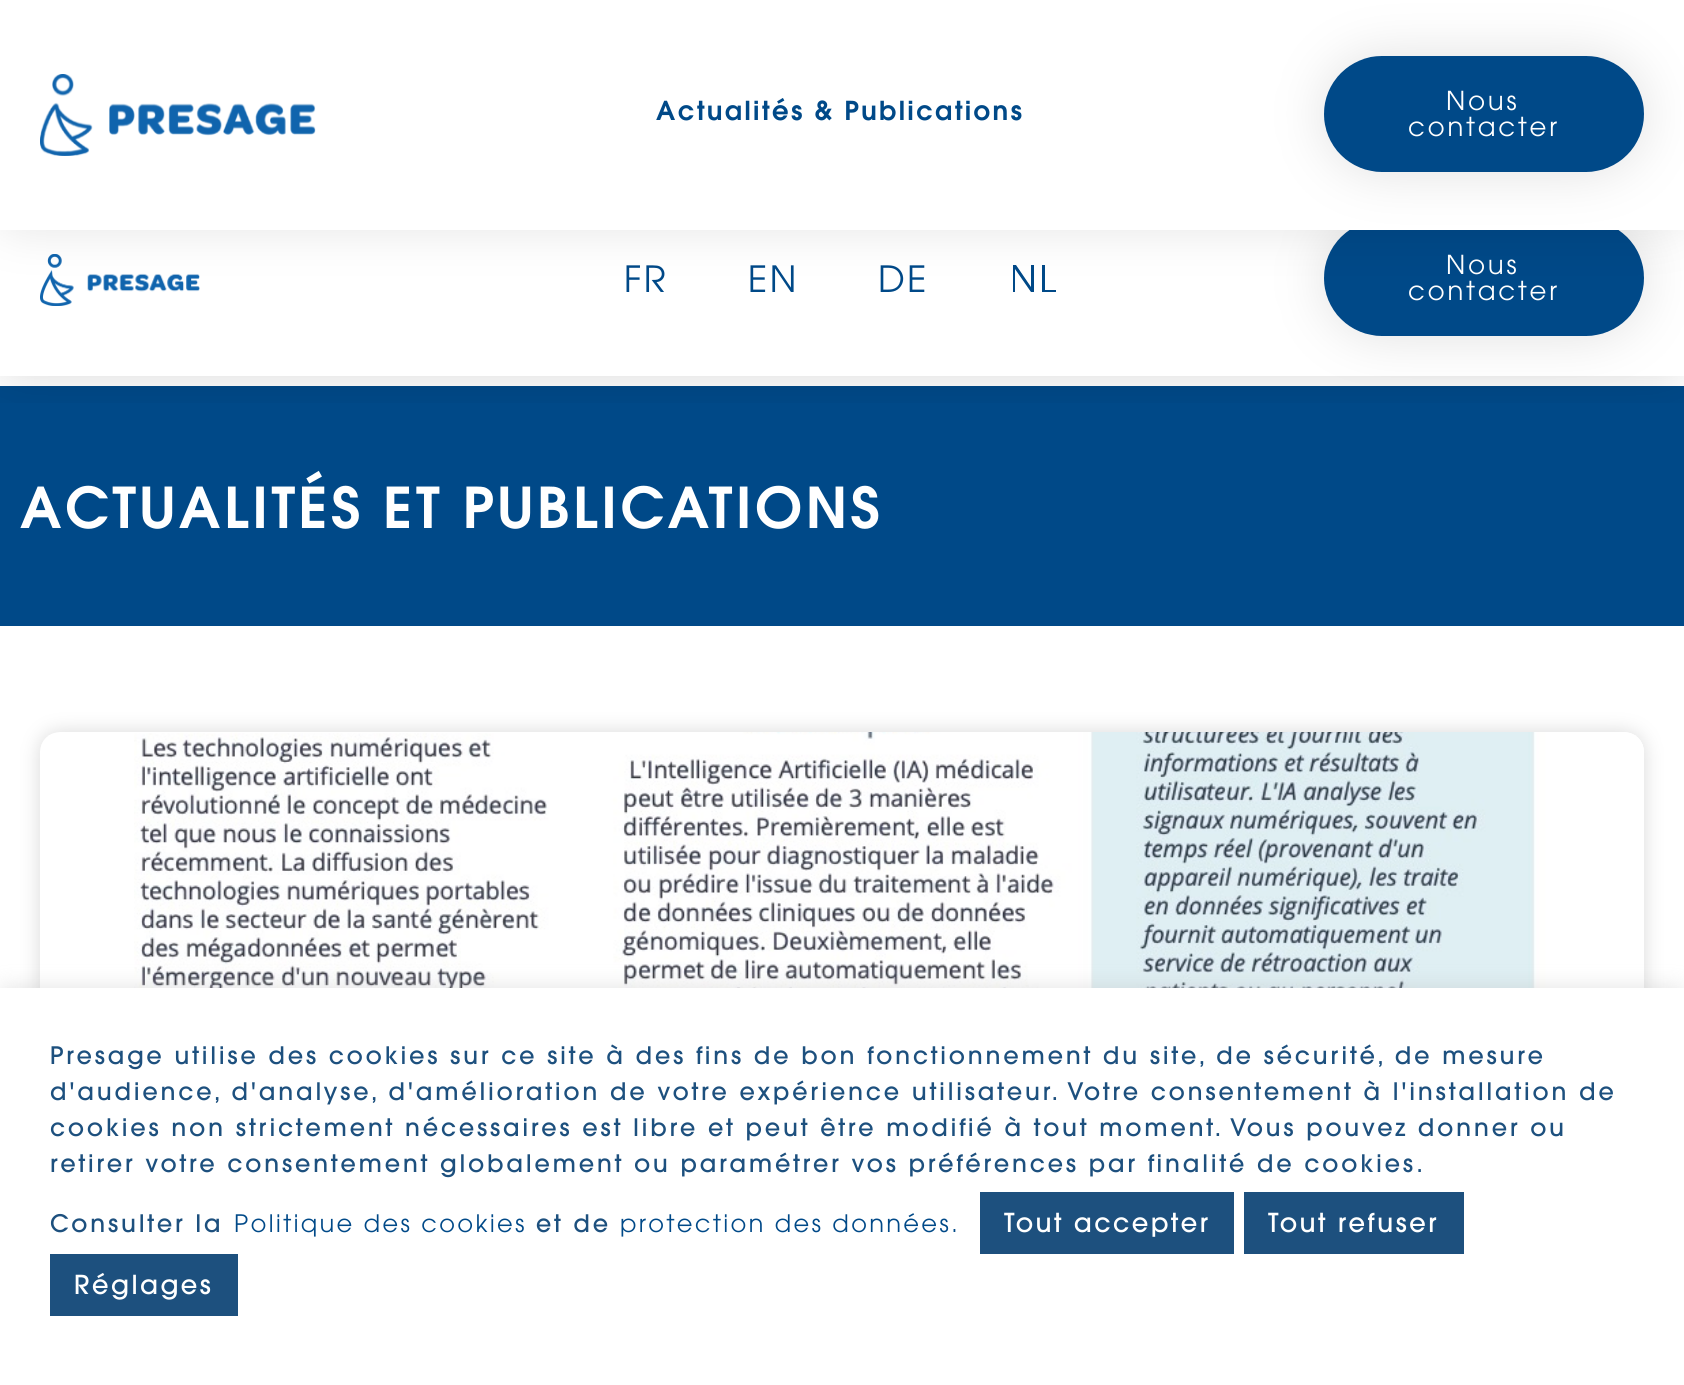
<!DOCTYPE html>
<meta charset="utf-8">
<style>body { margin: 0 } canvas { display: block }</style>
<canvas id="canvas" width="1684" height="1385"></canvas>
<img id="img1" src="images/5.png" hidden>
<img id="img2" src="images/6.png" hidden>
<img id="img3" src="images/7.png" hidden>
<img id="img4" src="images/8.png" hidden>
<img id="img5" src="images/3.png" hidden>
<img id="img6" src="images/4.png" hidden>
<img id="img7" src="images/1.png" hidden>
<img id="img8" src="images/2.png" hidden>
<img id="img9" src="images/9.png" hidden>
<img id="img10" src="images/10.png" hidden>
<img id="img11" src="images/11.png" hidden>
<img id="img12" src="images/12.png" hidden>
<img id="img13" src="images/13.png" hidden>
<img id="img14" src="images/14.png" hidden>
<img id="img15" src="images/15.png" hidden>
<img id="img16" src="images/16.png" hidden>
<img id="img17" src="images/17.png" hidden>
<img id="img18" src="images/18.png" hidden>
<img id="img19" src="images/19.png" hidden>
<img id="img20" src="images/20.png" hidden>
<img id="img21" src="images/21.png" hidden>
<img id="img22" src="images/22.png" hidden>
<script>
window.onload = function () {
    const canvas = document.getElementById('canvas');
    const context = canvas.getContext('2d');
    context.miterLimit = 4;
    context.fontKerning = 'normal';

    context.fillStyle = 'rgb(255, 255, 255)';
    context.fillRect(0, 0, 1684, 1385);
    context.fillStyle = 'rgb(0, 73, 136)';
    context.fillRect(0, 386, 1684, 240);
    context.save();
    context.beginPath();
    context.rect(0, 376, 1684, 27);
    context.clip();
    context.fillStyle = 'rgba(0, 0, 0, 0.15)';
    context.filter = 'blur(24px)';
    context.beginPath();
    context.rect(0, 180, 1684, 196);
    context.fill();
    context.filter = 'none';
    context.restore();
    context.drawImage(document.getElementById('img1'), 40, 254, 160, 52);
    context.drawImage(document.getElementById('img2'), 626, 265, 39, 27);
    context.drawImage(document.getElementById('img3'), 750, 265, 44, 27);
    context.drawImage(document.getElementById('img4'), 880, 265, 45, 27);
    context.beginPath();
    context.moveTo(1034, 292);
    context.lineTo(1031, 292);
    context.lineTo(1015, 269);
    context.lineTo(1015, 292);
    context.lineTo(1013, 292);
    context.lineTo(1013, 265);
    context.lineTo(1016, 265);
    context.lineTo(1031, 287);
    context.lineTo(1031, 265);
    context.lineTo(1034, 265);
    context.closePath();
    context.moveTo(1056, 292);
    context.lineTo(1042, 292);
    context.lineTo(1042, 265);
    context.lineTo(1045, 265);
    context.lineTo(1045, 290);
    context.lineTo(1056, 290);
    context.closePath();
    context.fill();
    context.fillStyle = 'rgba(0, 0, 0, 0.12)';
    context.filter = 'blur(27px)';
    context.beginPath();
    context.roundRect(1324, 220, 320, 116, 58);
    context.fill();
    context.filter = 'none';
    context.fillStyle = 'rgb(0, 73, 136)';
    context.beginPath();
    context.roundRect(1324, 220, 320, 116, 58);
    context.fill();
    context.drawImage(document.getElementById('img5'), 1447, 254, 69, 21);
    context.drawImage(document.getElementById('img6'), 1409, 280, 148, 21);
    context.fillStyle = 'rgba(0, 0, 0, 0.1)';
    context.filter = 'blur(24px)';
    context.beginPath();
    context.rect(0, 0, 1684, 230);
    context.fill();
    context.filter = 'none';
    context.fillStyle = 'rgb(255, 255, 255)';
    context.fillRect(0, 0, 1684, 230);
    context.drawImage(document.getElementById('img7'), 40, 74, 276, 82);
    context.drawImage(document.getElementById('img8'), 656, 98, 366, 23);
    context.fillStyle = 'rgba(0, 0, 0, 0.12)';
    context.filter = 'blur(27px)';
    context.beginPath();
    context.roundRect(1324, 56, 320, 116, 58);
    context.fill();
    context.filter = 'none';
    context.fillStyle = 'rgb(0, 73, 136)';
    context.beginPath();
    context.roundRect(1324, 56, 320, 116, 58);
    context.fill();
    context.drawImage(document.getElementById('img5'), 1447, 90, 69, 21);
    context.drawImage(document.getElementById('img6'), 1409, 116, 148, 21);
    context.drawImage(document.getElementById('img9'), 20, 470, 859, 59);
    context.fillStyle = 'rgba(0, 0, 0, 0.15)';
    context.filter = 'blur(10px)';
    context.beginPath();
    context.roundRect(40, 732, 1604, 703, 20);
    context.fill();
    context.filter = 'none';
    context.fillStyle = 'rgb(255, 255, 255)';
    context.beginPath();
    context.roundRect(40, 732, 1604, 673, 20);
    context.fill();
    context.drawImage(document.getElementById('img10'), 134, 732, 1510, 256);
    context.fillStyle = 'rgba(172, 171, 171, 0.3)';
    context.filter = 'blur(10px)';
    context.beginPath();
    context.rect(0, 986, 1684, 398);
    context.fill();
    context.filter = 'none';
    context.fillStyle = 'rgb(255, 255, 255)';
    context.fillRect(0, 988, 1684, 397);
    context.drawImage(document.getElementById('img11'), 51, 1044, 1492, 26);
    context.drawImage(document.getElementById('img12'), 50, 1080, 1563, 25);
    context.drawImage(document.getElementById('img13'), 50, 1116, 1170, 25);
    context.drawImage(document.getElementById('img14'), 1230, 1118, 333, 23);
    context.drawImage(document.getElementById('img15'), 51, 1152, 1370, 26);
    context.drawImage(document.getElementById('img16'), 50, 1213, 169, 20);
    context.drawImage(document.getElementById('img17'), 235, 1214, 289, 23);
    context.drawImage(document.getElementById('img18'), 536, 1214, 72, 19);
    context.drawImage(document.getElementById('img19'), 621, 1213, 335, 24);
    context.fillStyle = 'rgb(29, 80, 126)';
    context.fillRect(980, 1192, 254, 62);
    context.drawImage(document.getElementById('img20'), 1004, 1212, 204, 25);
    context.fillRect(1244, 1192, 220, 62);
    context.drawImage(document.getElementById('img21'), 1268, 1212, 169, 21);
    context.fillRect(50, 1254, 188, 62);
    context.drawImage(document.getElementById('img22'), 75, 1273, 136, 27);
};
</script>
